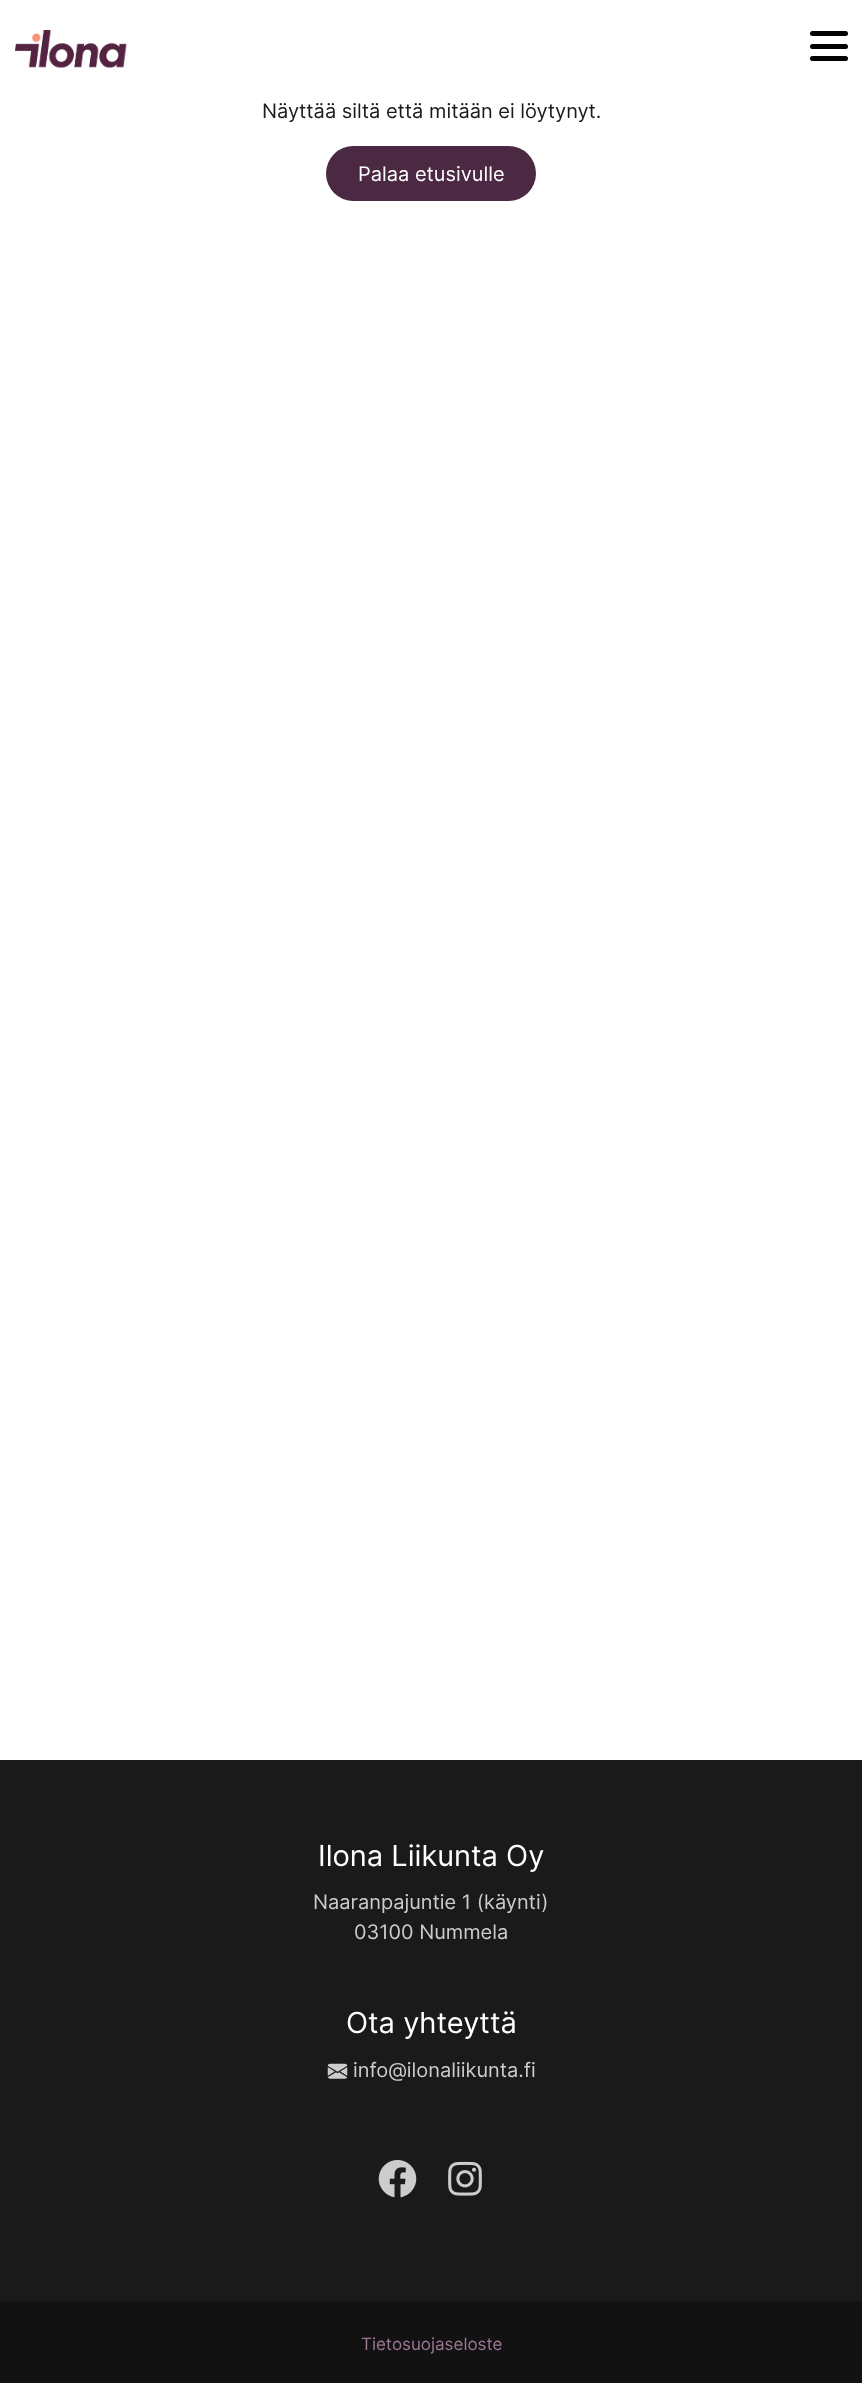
<!DOCTYPE html>
<meta charset="utf-8">
<style>body { margin: 0 } canvas { display: block }</style>
<canvas id="canvas" width="862" height="2383"></canvas>
<img id="img1" src="images/1.png" hidden>
<img id="img2" src="images/2.png" hidden>
<img id="img3" src="images/3.png" hidden>
<img id="img4" src="images/4.png" hidden>
<script>
window.onload = function () {
    const canvas = document.getElementById('canvas');
    const context = canvas.getContext('2d');
    context.miterLimit = 4;
    context.fontKerning = 'normal';

    context.fillStyle = 'rgb(255, 255, 255)';
    context.fillRect(0, 0, 862, 2383);
    context.drawImage(document.getElementById('img1'), 15, 30, 112, 38);
    context.fillStyle = 'rgb(0, 0, 0)';
    context.beginPath();
    context.roundRect(810, 31, 38, 5, 2.5);
    context.fill();
    context.beginPath();
    context.roundRect(810, 44, 38, 5, 2.5);
    context.fill();
    context.beginPath();
    context.roundRect(810, 56, 38, 5, 2.5);
    context.fill();
    context.fillStyle = 'rgb(75, 41, 66)';
    context.beginPath();
    context.roundRect(326, 146, 210, 55, 27.5);
    context.fill();
    context.fillStyle = 'rgb(26, 26, 26)';
    context.fillRect(0, 1760, 862, 541);
    context.drawImage(document.getElementById('img2'), 327, 2063, 21, 16);
    context.drawImage(document.getElementById('img3'), 378, 2160, 39, 38);
    context.drawImage(document.getElementById('img4'), 448, 2161, 34, 35);
    context.fillStyle = 'rgb(18, 18, 18)';
    context.fillRect(0, 2301, 862, 82);
    context.font = '20px Inter';
    context.fillStyle = 'rgb(27, 27, 27)';
    context.fillText('Näyttää siltä että mitään ei löytynyt.', 262, 118);
    context.fillStyle = 'rgb(255, 255, 255)';
    context.fillText('Palaa etusivulle', 358, 181);
    context.font = '29px Inter';
    context.fillText('Ilona Liikunta Oy', 318, 1866);
    context.font = '20px Inter';
    context.fillStyle = 'rgb(204, 204, 204)';
    context.fillText('Naaranpajuntie 1 (käynti)', 313, 1909);
    context.fillText('03100 Nummela', 354, 1939);
    context.font = '29px Inter';
    context.fillStyle = 'rgb(255, 255, 255)';
    context.fillText('Ota yhteyttä', 346, 2033);
    context.font = '20px Inter';
    context.fillStyle = 'rgb(204, 204, 204)';
    context.fillText('info@ilonaliikunta.fi', 353, 2077);
    context.font = '17px Inter';
    context.fillStyle = 'rgb(158, 119, 147)';
    context.fillText('Tietosuojaseloste', 361, 2350);
};
</script>
